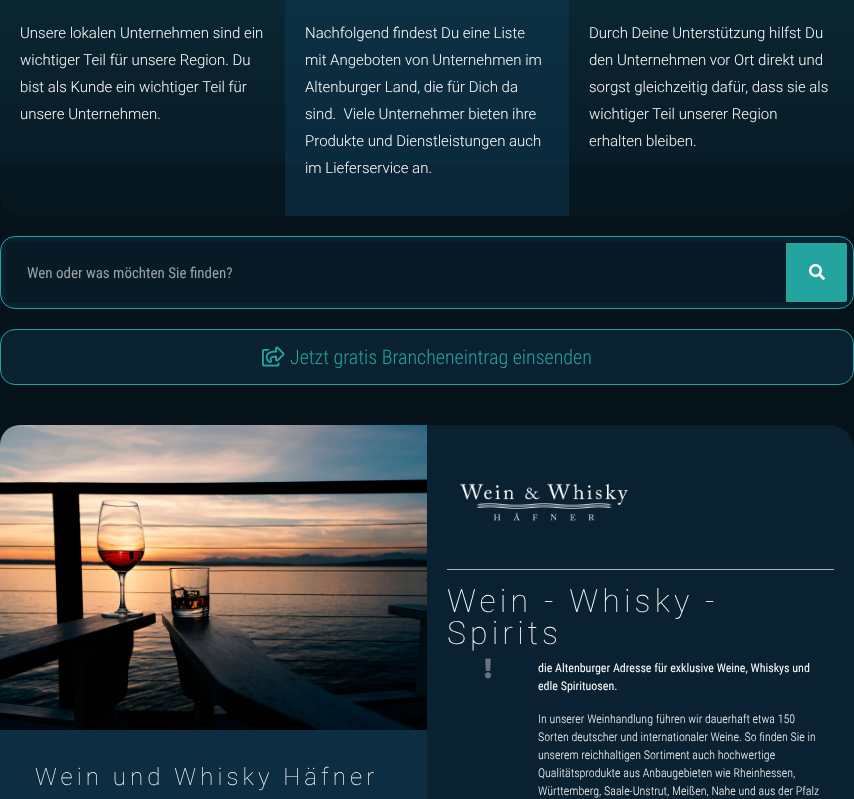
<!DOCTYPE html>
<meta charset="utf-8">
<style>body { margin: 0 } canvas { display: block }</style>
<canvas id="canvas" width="854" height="799"></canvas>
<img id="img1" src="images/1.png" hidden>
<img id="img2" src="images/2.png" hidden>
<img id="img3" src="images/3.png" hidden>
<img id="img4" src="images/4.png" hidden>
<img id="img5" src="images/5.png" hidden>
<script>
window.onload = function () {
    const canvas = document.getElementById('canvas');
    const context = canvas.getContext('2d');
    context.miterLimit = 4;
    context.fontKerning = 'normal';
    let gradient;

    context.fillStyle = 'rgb(5, 18, 26)';
    context.fillRect(0, 0, 854, 799);
    gradient = context.createLinearGradient(427, -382, 427, 164);
    gradient.addColorStop(0, 'rgb(30, 138, 136)');
    gradient.addColorStop(1, 'rgb(9, 33, 48)');
    context.fillStyle = gradient;
    context.fillRect(0, 0, 854, 164);
    context.fillStyle = 'rgba(7, 26, 37, 0.66)';
    context.beginPath();
    context.roundRect(0, 0, 854, 216, [0, 0, 20, 20]);
    context.fill();
    context.fillStyle = 'rgba(15, 64, 95, 0.39)';
    context.fillRect(285, 0, 284, 216);
    context.fillStyle = 'rgb(9, 33, 48)';
    context.beginPath();
    context.roundRect(0.5, 236.5, 853, 72, 14.5);
    context.fill();
    context.strokeStyle = 'rgb(35, 164, 159)';
    context.stroke();
    context.fillStyle = 'rgb(7, 26, 37)';
    context.beginPath();
    context.roundRect(6, 242, 842, 61, 3);
    context.fill();
    context.fillStyle = 'rgb(35, 164, 159)';
    context.beginPath();
    context.roundRect(786, 243, 61, 59, [0, 2, 2, 0]);
    context.fill();
    context.drawImage(document.getElementById('img1'), 809, 264, 16, 16);
    context.fillStyle = 'rgb(9, 33, 48)';
    context.beginPath();
    context.roundRect(0.5, 329.5, 853, 55, 14.5);
    context.fill();
    context.stroke();
    context.drawImage(document.getElementById('img2'), 262, 346, 23, 21);
    context.fillStyle = 'rgb(13, 46, 66)';
    context.beginPath();
    context.moveTo(25, 425);
    context.lineTo(427, 425);
    context.lineTo(427, 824);
    context.lineTo(25, 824);
    context.bezierCurveTo(11, 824, 0, 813, 0, 799);
    context.lineTo(0, 450);
    context.bezierCurveTo(0, 436, 11, 425, 25, 425);
    context.closePath();
    context.fill();
    context.drawImage(document.getElementById('img3'), 0, 425, 427, 305);
    context.fillStyle = 'rgb(9, 33, 48)';
    context.beginPath();
    context.moveTo(427, 425);
    context.lineTo(829, 425);
    context.bezierCurveTo(843, 425, 854, 436, 854, 450);
    context.lineTo(854, 799);
    context.bezierCurveTo(854, 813, 843, 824, 829, 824);
    context.lineTo(427, 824);
    context.closePath();
    context.fill();
    context.drawImage(document.getElementById('img4'), 460, 483, 168, 38);
    context.fillStyle = 'rgb(171, 180, 185)';
    context.fillRect(447, 569, 387, 1);
    context.drawImage(document.getElementById('img5'), 484, 658, 8, 21);
    context.font = '300 15px Roboto';
    context.fillStyle = 'rgb(255, 255, 255)';
    context.fillText('Unsere lokalen Unternehmen sind ein', 20, 38);
    context.fillText('wichtiger Teil für unsere Region. Du', 20, 65);
    context.fillText('bist als Kunde ein wichtiger Teil für', 20, 92);
    context.fillText('unsere Unternehmen.', 20, 119);
    context.fillText('Nachfolgend findest Du eine Liste', 305, 38);
    context.fillText('mit Angeboten von Unternehmen im', 305, 65);
    context.fillText('Altenburger Land, die für Dich da', 305, 92);
    context.fillText('sind.  Viele Unternehmer bieten ihre', 305, 119);
    context.fillText('Produkte und Dienstleistungen auch', 305, 146);
    context.fillText('im Lieferservice an.', 305, 173);
    context.fillText('Durch Deine Unterstützung hilfst Du', 589, 38);
    context.fillText('den Unternehmen vor Ort direkt und', 589, 65);
    context.fillText('sorgst gleichzeitig dafür, dass sie als', 589, 92);
    context.fillText('wichtiger Teil unserer Region', 589, 119);
    context.fillText('erhalten bleiben.', 589, 146);
    context.font = '15px Roboto Condensed';
    context.fillStyle = 'rgb(156, 163, 168)';
    context.fillText('Wen oder was möchten Sie finden?', 27, 278);
    context.font = '300 20px Roboto Condensed';
    context.fillStyle = 'rgb(35, 164, 159)';
    context.fillText('Jetzt gratis Brancheneintrag einsenden', 290, 364);
    context.letterSpacing = '4.1px';
    context.font = '100 24px Roboto';
    context.fillStyle = 'rgb(255, 255, 255)';
    context.fillText('Wein und Whisky Häfner', 35, 785);
    context.font = '100 32px Roboto';
    context.fillText('Wein - Whisky -', 447, 612);
    context.fillText('Spirits', 447, 644);
    context.letterSpacing = '0px';
    context.font = '12px Roboto Condensed';
    context.fillText('die Altenburger Adresse für exklusive Weine, Whiskys und', 538, 672);
    context.fillText('edle Spirituosen.', 538, 690);
    context.font = '300 12px Roboto Condensed';
    context.fillText('In unserer Weinhandlung führen wir dauerhaft etwa 150', 538, 723);
    context.fillText('Sorten deutscher und internationaler Weine. So finden Sie in', 538, 741);
    context.fillText('unserem reichhaltigen Sortiment auch hochwertige', 538, 759);
    context.fillText('Qualitätsprodukte aus Anbaugebieten wie Rheinhessen,', 538, 777);
    context.fillText('Württemberg, Saale-Unstrut, Meißen, Nahe und aus der Pfalz', 538, 795);
};
</script>
